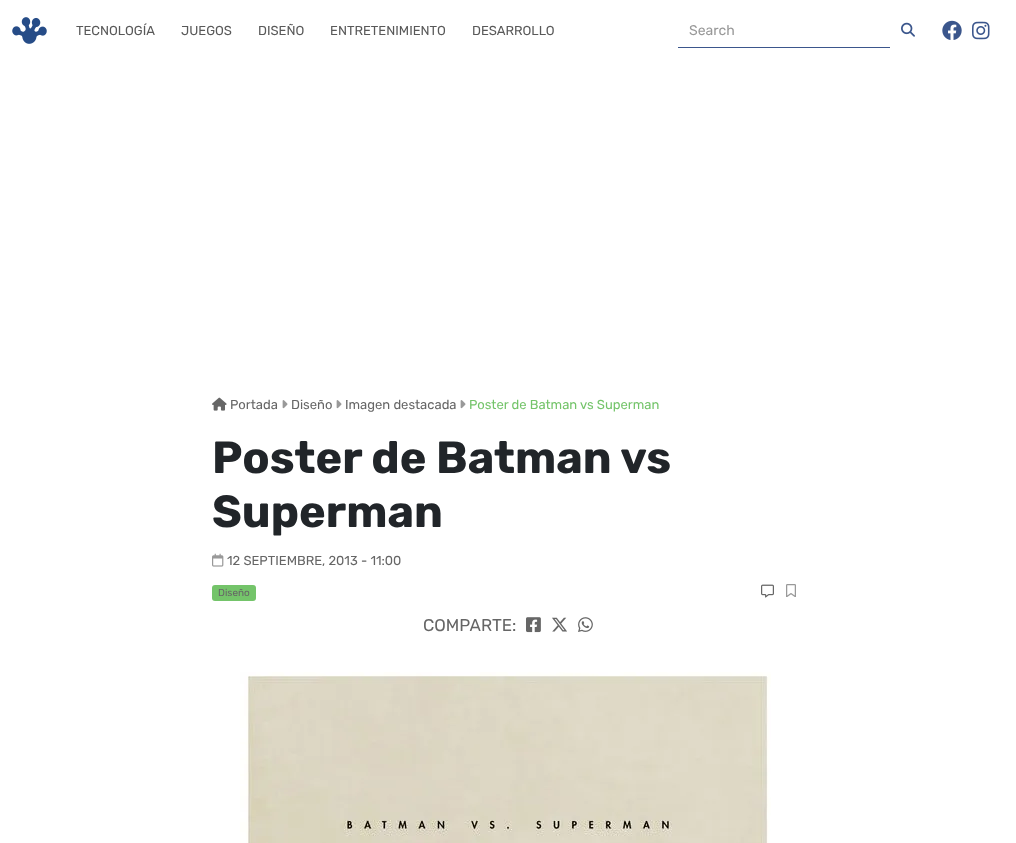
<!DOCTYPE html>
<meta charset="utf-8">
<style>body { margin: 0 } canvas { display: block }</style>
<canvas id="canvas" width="1016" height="843"></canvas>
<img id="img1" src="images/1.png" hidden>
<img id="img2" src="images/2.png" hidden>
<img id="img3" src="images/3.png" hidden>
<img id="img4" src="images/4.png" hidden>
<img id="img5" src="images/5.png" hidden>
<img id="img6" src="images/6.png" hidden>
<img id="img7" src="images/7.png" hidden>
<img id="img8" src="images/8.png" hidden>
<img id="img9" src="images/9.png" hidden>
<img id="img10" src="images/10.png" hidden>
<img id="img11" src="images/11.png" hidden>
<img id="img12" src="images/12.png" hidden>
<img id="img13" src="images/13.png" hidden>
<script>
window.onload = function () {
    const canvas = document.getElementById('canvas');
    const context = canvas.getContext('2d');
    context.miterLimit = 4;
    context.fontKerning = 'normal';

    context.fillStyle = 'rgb(255, 255, 255)';
    context.fillRect(0, 0, 1016, 843);
    context.drawImage(document.getElementById('img1'), 12, 17, 35, 27);
    context.fillStyle = 'rgb(59, 86, 140)';
    context.fillRect(678, 47, 212, 1);
    context.drawImage(document.getElementById('img2'), 901, 22, 14, 15);
    context.drawImage(document.getElementById('img3'), 942, 20, 20, 20);
    context.drawImage(document.getElementById('img4'), 972, 21, 18, 19);
    context.drawImage(document.getElementById('img5'), 212, 397, 15, 14);
    context.drawImage(document.getElementById('img6'), 282, 400, 6, 9);
    context.drawImage(document.getElementById('img6'), 336, 400, 6, 9);
    context.drawImage(document.getElementById('img6'), 460, 400, 6, 9);
    context.drawImage(document.getElementById('img7'), 212, 553, 12, 14);
    context.fillStyle = 'rgb(116, 196, 106)';
    context.beginPath();
    context.roundRect(212, 585, 44, 16, 3);
    context.fill();
    context.drawImage(document.getElementById('img8'), 761, 584, 13, 14);
    context.drawImage(document.getElementById('img9'), 786, 584, 10, 13);
    context.drawImage(document.getElementById('img10'), 526, 617, 15, 16);
    context.drawImage(document.getElementById('img11'), 552, 617, 15, 15);
    context.drawImage(document.getElementById('img12'), 578, 617, 15, 15);
    context.drawImage(document.getElementById('img13'), 240, 672, 531, 171);
    context.font = '300 13px Rubik';
    context.fillStyle = 'rgb(89, 89, 89)';
    context.fillText('TECNOLOGÍA', 76, 35);
    context.fillText('JUEGOS', 181, 35);
    context.fillText('DISEÑO', 258, 35);
    context.fillText('ENTRETENIMIENTO', 330, 35);
    context.fillText('DESARROLLO', 472, 35);
    context.font = '300 14px Rubik';
    context.fillStyle = 'rgb(153, 153, 153)';
    context.fillText('Search', 689, 35);
    context.font = '300 13px Rubik';
    context.fillStyle = 'rgb(102, 102, 102)';
    context.fillText('Portada', 230, 409);
    context.fillText('Diseño', 291, 409);
    context.fillText('Imagen destacada', 345, 409);
    context.fillStyle = 'rgb(116, 196, 106)';
    context.fillText('Poster de Batman vs Superman', 469, 409);
    context.font = '300 45px "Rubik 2"';
    context.fillStyle = 'rgb(33, 37, 41)';
    context.fillText('Poster de Batman vs', 212, 473);
    context.fillText('Superman', 212, 527);
    context.font = '300 13px Rubik';
    context.fillStyle = 'rgb(102, 102, 102)';
    context.fillText('12 SEPTIEMBRE, 2013 - 11:00', 227, 565);
    context.font = '300 10px Rubik';
    context.fillText('Diseño', 218, 596);
    context.font = '300 17px Rubik';
    context.fillText('COMPARTE:', 423, 631);
};
</script>
